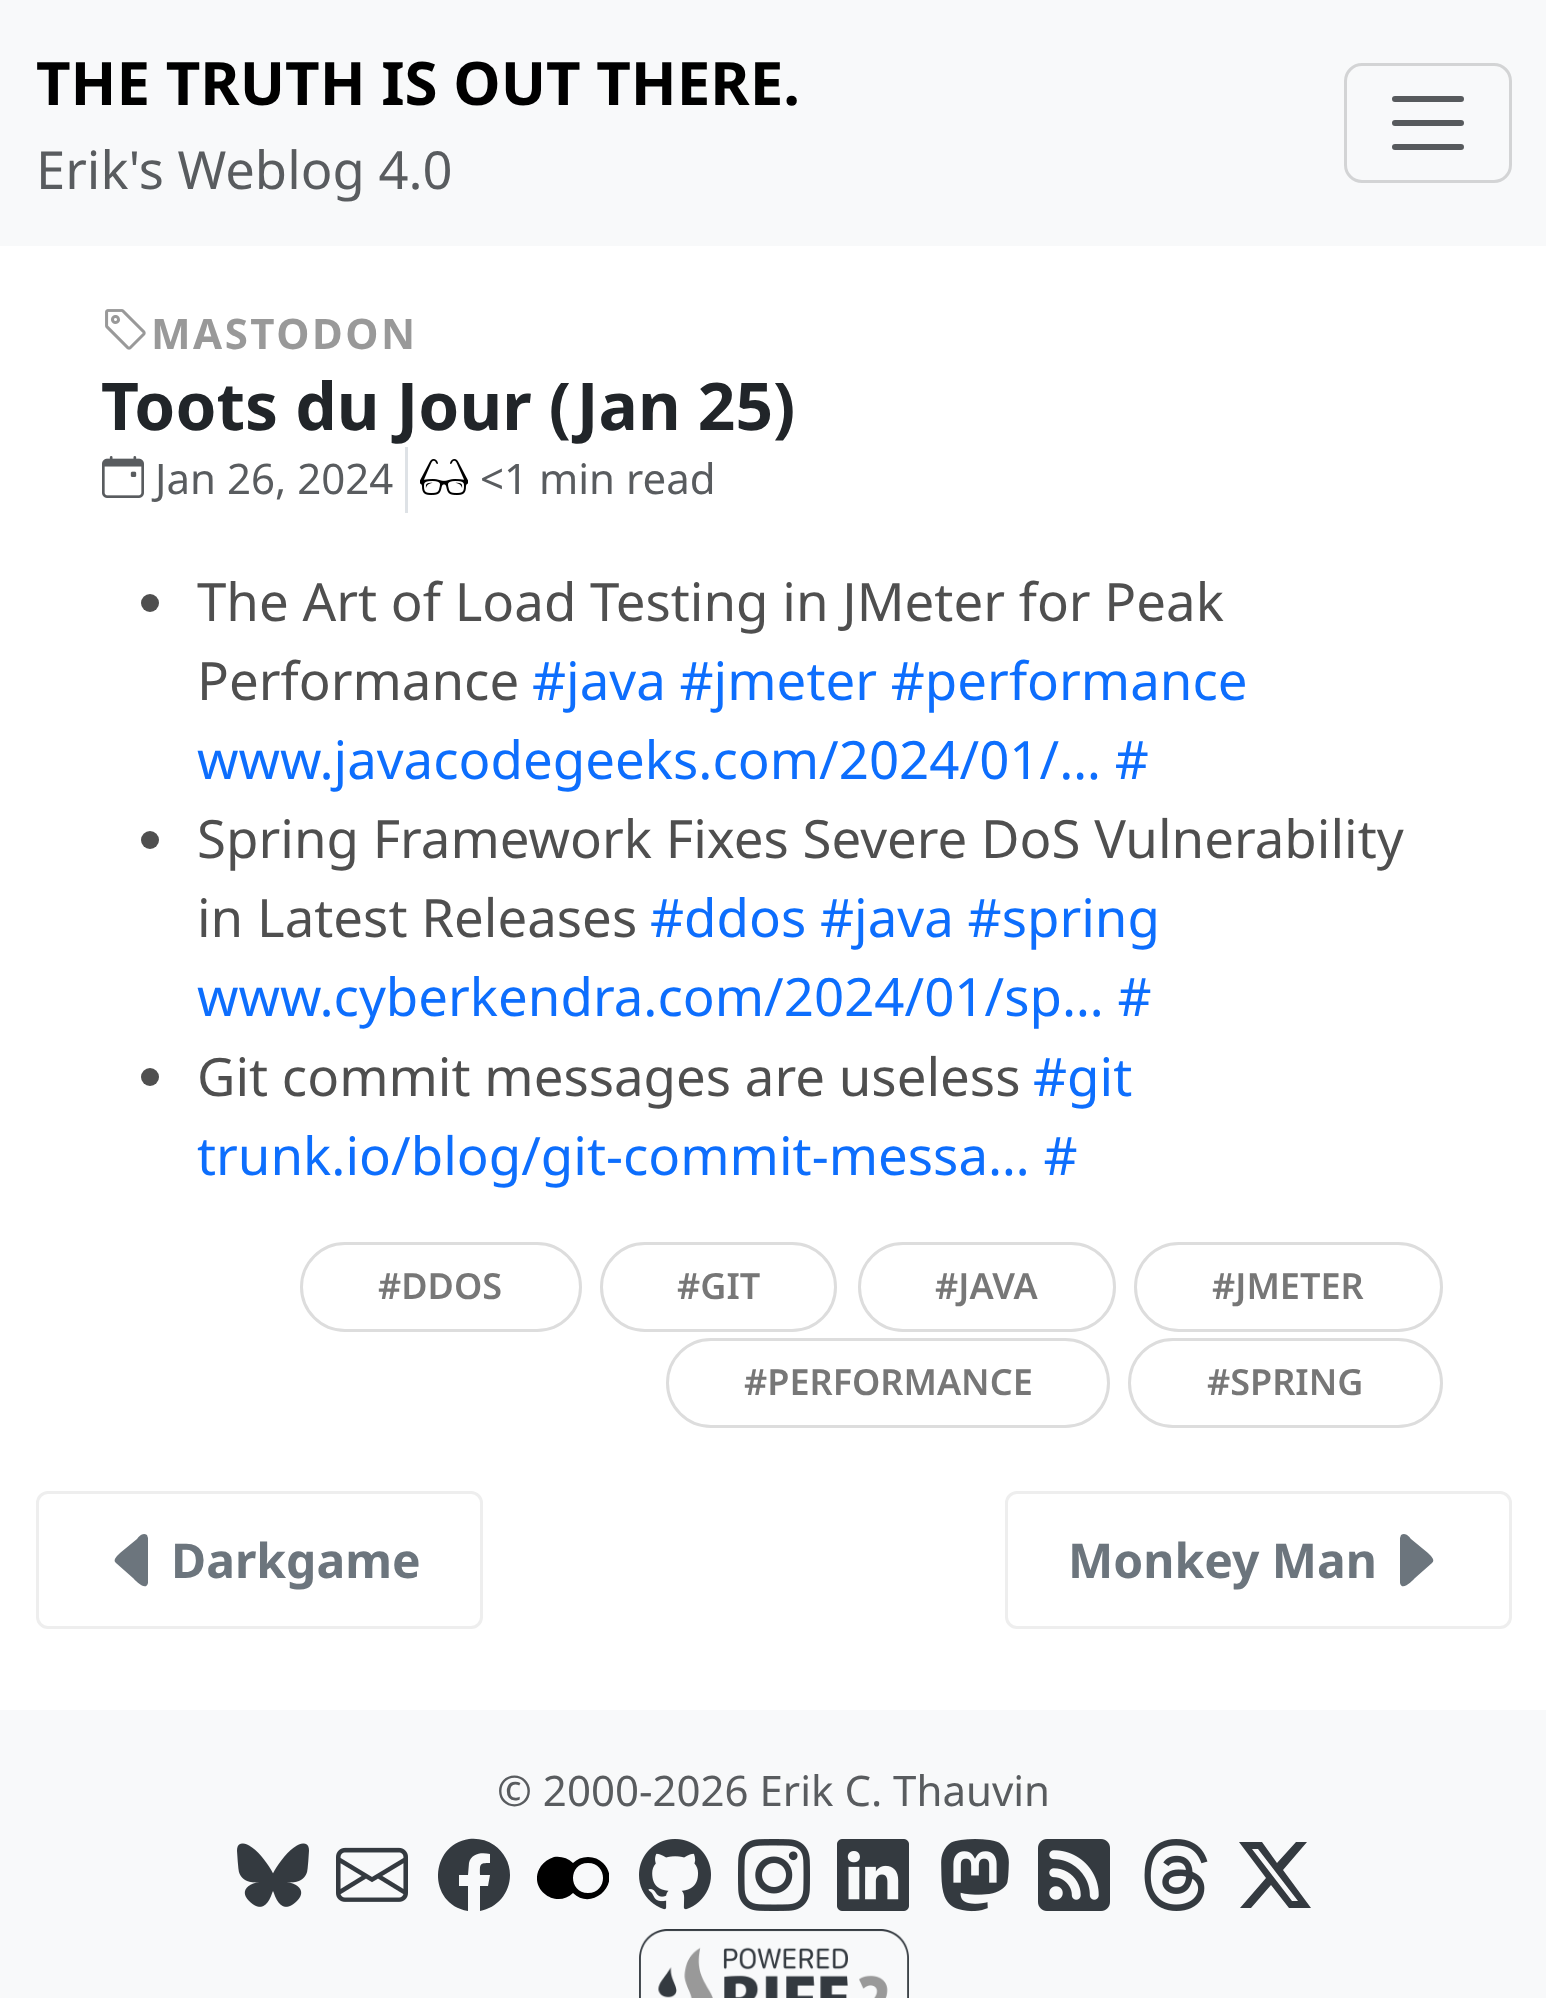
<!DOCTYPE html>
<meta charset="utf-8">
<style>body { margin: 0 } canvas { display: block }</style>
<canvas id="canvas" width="1546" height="1998"></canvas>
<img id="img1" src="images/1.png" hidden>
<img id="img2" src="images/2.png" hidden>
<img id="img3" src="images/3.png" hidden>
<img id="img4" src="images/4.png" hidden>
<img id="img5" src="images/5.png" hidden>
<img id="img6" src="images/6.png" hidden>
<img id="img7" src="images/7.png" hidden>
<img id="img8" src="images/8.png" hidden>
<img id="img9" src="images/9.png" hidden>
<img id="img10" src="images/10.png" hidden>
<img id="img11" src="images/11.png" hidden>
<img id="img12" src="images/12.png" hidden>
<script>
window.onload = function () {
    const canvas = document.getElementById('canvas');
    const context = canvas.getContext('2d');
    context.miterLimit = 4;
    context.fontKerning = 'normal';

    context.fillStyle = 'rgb(255, 255, 255)';
    context.fillRect(0, 0, 1546, 1998);
    context.fillStyle = 'rgb(248, 249, 250)';
    context.fillRect(0, 0, 1546, 246);
    context.beginPath();
    context.roundRect(1345.5, 64.5, 165, 117, 16.5);
    context.strokeStyle = 'rgb(211, 212, 213)';
    context.lineWidth = 3;
    context.stroke();
    context.beginPath();
    context.moveTo(1395, 99);
    context.lineTo(1461, 99);
    context.moveTo(1395, 123);
    context.lineTo(1461, 123);
    context.moveTo(1395, 147);
    context.lineTo(1461, 147);
    context.strokeStyle = 'rgb(87, 90, 93)';
    context.lineWidth = 6;
    context.lineCap = 'round';
    context.stroke();
    context.drawImage(document.getElementById('img1'), 105, 309, 41, 41);
    context.drawImage(document.getElementById('img2'), 102, 456, 42, 42);
    context.fillStyle = 'rgb(222, 226, 230)';
    context.fillRect(405, 447, 3, 66);
    context.drawImage(document.getElementById('img3'), 420, 459, 48, 36);
    context.fillStyle = 'rgb(79, 79, 79)';
    context.beginPath();
    context.arc(150, 603, 9, 0, 2 * Math.PI);
    context.fill();
    context.beginPath();
    context.arc(150, 840, 9, 0, 2 * Math.PI);
    context.fill();
    context.beginPath();
    context.arc(150, 1077, 9, 0, 2 * Math.PI);
    context.fill();
    context.beginPath();
    context.roundRect(301.5, 1243.5, 279, 87, 43.5);
    context.strokeStyle = 'rgb(221, 221, 221)';
    context.lineWidth = 3;
    context.stroke();
    context.beginPath();
    context.roundRect(601.5, 1243.5, 234, 87, 43.5);
    context.stroke();
    context.beginPath();
    context.roundRect(859.5, 1243.5, 255, 87, 43.5);
    context.stroke();
    context.beginPath();
    context.roundRect(1135.5, 1243.5, 306, 87, 43.5);
    context.stroke();
    context.beginPath();
    context.roundRect(667.5, 1339.5, 441, 87, 43.5);
    context.stroke();
    context.beginPath();
    context.roundRect(1129.5, 1339.5, 312, 87, 43.5);
    context.stroke();
    context.beginPath();
    context.roundRect(37.5, 1492.5, 444, 135, 10.5);
    context.strokeStyle = 'rgb(238, 238, 238)';
    context.stroke();
    context.fillStyle = 'rgb(108, 117, 125)';
    context.beginPath();
    context.moveTo(116, 1563);
    context.lineTo(133, 1578);
    context.bezierCurveTo(135, 1580, 146, 1592, 148, 1583);
    context.lineTo(148, 1538);
    context.lineTo(147, 1535);
    context.bezierCurveTo(143, 1532, 139, 1536, 137, 1539);
    context.lineTo(120, 1553);
    context.bezierCurveTo(118, 1555, 112, 1560, 116, 1563);
    context.closePath();
    context.fill();
    context.beginPath();
    context.roundRect(1006.5, 1492.5, 504, 135, 10.5);
    context.stroke();
    context.beginPath();
    context.moveTo(1432, 1563);
    context.lineTo(1415, 1578);
    context.bezierCurveTo(1413, 1580, 1402, 1592, 1400, 1583);
    context.lineTo(1400, 1538);
    context.lineTo(1401, 1535);
    context.bezierCurveTo(1405, 1532, 1409, 1536, 1411, 1539);
    context.lineTo(1428, 1553);
    context.bezierCurveTo(1430, 1555, 1436, 1560, 1432, 1563);
    context.closePath();
    context.fill();
    context.fillStyle = 'rgb(248, 249, 250)';
    context.fillRect(0, 1710, 1546, 288);
    context.drawImage(document.getElementById('img4'), 237, 1843, 72, 64);
    context.drawImage(document.getElementById('img5'), 336, 1847, 72, 55);
    context.fillStyle = 'rgb(52, 58, 64)';
    context.beginPath();
    context.moveTo(510, 1875);
    context.bezierCurveTo(510, 1863, 504, 1852, 494, 1845);
    context.bezierCurveTo(487, 1840, 478, 1838, 469, 1839);
    context.bezierCurveTo(429, 1845, 427, 1904, 468, 1911);
    context.lineTo(468, 1886);
    context.lineTo(459, 1886);
    context.lineTo(459, 1875);
    context.lineTo(468, 1875);
    context.lineTo(469, 1863);
    context.bezierCurveTo(471, 1853, 482, 1852, 490, 1854);
    context.lineTo(490, 1863);
    context.bezierCurveTo(479, 1863, 480, 1864, 480, 1875);
    context.lineTo(490, 1875);
    context.lineTo(488, 1886);
    context.lineTo(480, 1886);
    context.lineTo(480, 1911);
    context.bezierCurveTo(497, 1908, 510, 1893, 510, 1875);
    context.closePath();
    context.fill();
    context.save();
    context.beginPath();
    context.rect(537, 1842, 72, 72);
    context.clip();
    context.fillStyle = 'rgb(0, 0, 0)';
    context.beginPath();
    context.moveTo(588, 1857);
    context.bezierCurveTo(582, 1857, 577, 1859, 573, 1863);
    context.bezierCurveTo(568, 1858, 561, 1856, 554, 1857);
    context.bezierCurveTo(548, 1859, 544, 1862, 541, 1866);
    context.bezierCurveTo(526, 1888, 556, 1910, 573, 1893);
    context.bezierCurveTo(592, 1912, 623, 1883, 603, 1863);
    context.bezierCurveTo(599, 1859, 594, 1857, 588, 1857);
    context.closePath();
    context.moveTo(588, 1893);
    context.bezierCurveTo(568, 1893, 568, 1863, 588, 1863);
    context.bezierCurveTo(608, 1863, 608, 1893, 588, 1893);
    context.closePath();
    context.fill();
    context.restore();
    context.drawImage(document.getElementById('img6'), 639, 1839, 72, 71);
    context.drawImage(document.getElementById('img7'), 738, 1839, 72, 72);
    context.drawImage(document.getElementById('img8'), 837, 1839, 72, 72);
    context.drawImage(document.getElementById('img9'), 941, 1839, 68, 73);
    context.drawImage(document.getElementById('img10'), 1038, 1839, 72, 72);
    context.drawImage(document.getElementById('img11'), 1144, 1839, 64, 72);
    context.beginPath();
    context.moveTo(1296, 1842);
    context.lineTo(1307, 1842);
    context.lineTo(1283, 1870);
    context.lineTo(1311, 1908);
    context.lineTo(1289, 1908);
    context.lineTo(1271, 1885);
    context.lineTo(1251, 1908);
    context.lineTo(1240, 1908);
    context.lineTo(1266, 1878);
    context.lineTo(1239, 1842);
    context.lineTo(1262, 1842);
    context.lineTo(1277, 1863);
    context.closePath();
    context.moveTo(1292, 1901);
    context.lineTo(1298, 1901);
    context.lineTo(1258, 1849);
    context.lineTo(1252, 1849);
    context.closePath();
    context.fill();
    context.drawImage(document.getElementById('img12'), 639, 1929, 270, 69);
    context.font = 'bold 60px Noto Sans';
    context.fillStyle = 'rgb(0, 0, 0)';
    context.fillText('THE TRUTH IS OUT THERE.', 36, 105);
    context.font = '52.5px Noto Sans';
    context.fillStyle = 'rgb(89, 92, 95)';
    context.fillText('Erik\'s Weblog 4.0', 36, 189);
    context.letterSpacing = '2.5px';
    context.font = 'bold 42px Noto Sans';
    context.fillStyle = 'rgb(153, 153, 153)';
    context.fillText('MASTODON', 151, 349);
    context.letterSpacing = '0px';
    context.font = 'bold 65.75px Noto Sans';
    context.fillStyle = 'rgb(33, 37, 41)';
    context.fillText('Toots du Jour (Jan 25)', 101, 430);
    context.font = '42px Noto Sans';
    context.fillStyle = 'rgb(89, 92, 95)';
    context.fillText('Jan 26, 2024', 155, 494);
    context.fillText('<1 min read', 480, 494);
    context.font = '52.8px Noto Sans';
    context.fillStyle = 'rgb(79, 79, 79)';
    context.fillText('The Art of Load Testing in JMeter for Peak', 197, 621);
    context.fillText('Performance', 197, 700);
    context.fillStyle = 'rgb(13, 110, 253)';
    context.fillText('#java #jmeter #performance', 532, 700);
    context.fillText('www.javacodegeeks.com/2024/01/… #', 197, 779);
    context.fillStyle = 'rgb(79, 79, 79)';
    context.fillText('Spring Framework Fixes Severe DoS Vulnerability', 197, 858);
    context.fillText('in Latest Releases', 197, 937);
    context.fillStyle = 'rgb(13, 110, 253)';
    context.fillText('#ddos #java #spring', 650, 937);
    context.fillText('www.cyberkendra.com/2024/01/sp… #', 197, 1016);
    context.fillStyle = 'rgb(79, 79, 79)';
    context.fillText('Git commit messages are useless', 197, 1096);
    context.fillStyle = 'rgb(13, 110, 253)';
    context.fillText('#git', 1033, 1096);
    context.fillText('trunk.io/blog/git-commit-messa… #', 197, 1175);
    context.font = '600 36px Noto Sans';
    context.fillStyle = 'rgb(119, 119, 119)';
    context.fillText('#DDOS', 378, 1299);
    context.fillText('#GIT', 677, 1299);
    context.fillText('#JAVA', 935, 1299);
    context.fillText('#JMETER', 1212, 1299);
    context.fillText('#PERFORMANCE', 744, 1395);
    context.fillText('#SPRING', 1207, 1395);
    context.font = 'bold 48px Noto Sans';
    context.fillStyle = 'rgb(108, 117, 125)';
    context.fillText('Darkgame', 171, 1578);
    context.fillText('Monkey Man', 1068, 1578);
    context.font = '42px Noto Sans';
    context.fillStyle = 'rgb(89, 92, 95)';
    context.fillText('© 2000-2026 Erik C. Thauvin', 497, 1806);
};
</script>
